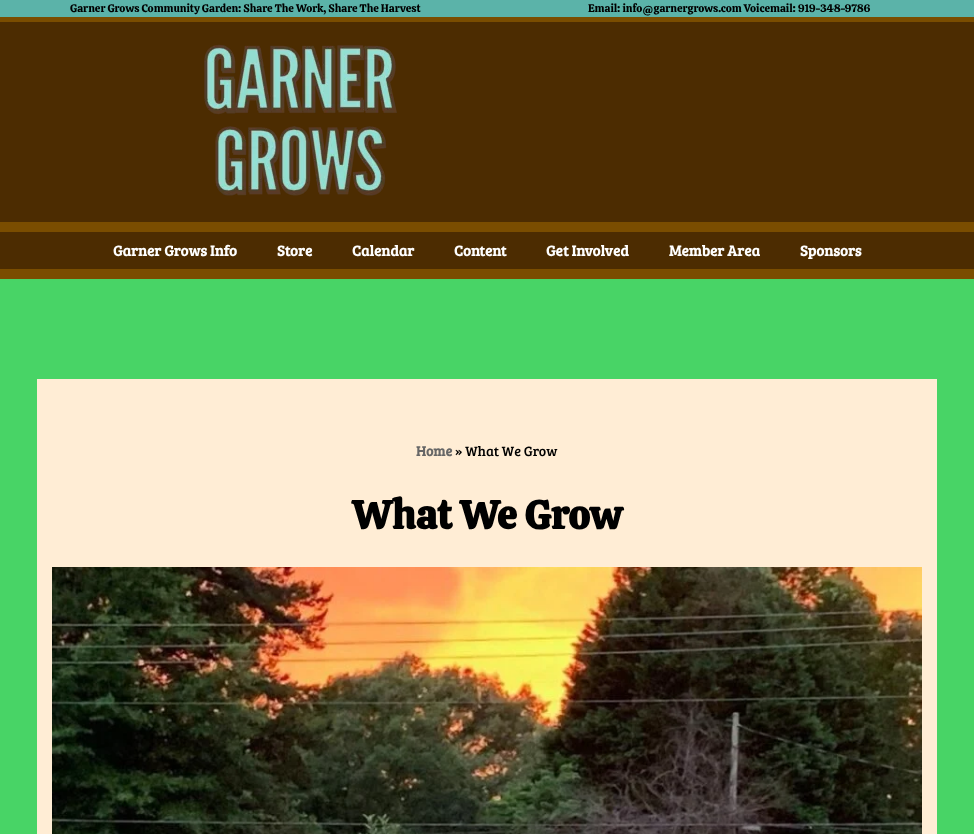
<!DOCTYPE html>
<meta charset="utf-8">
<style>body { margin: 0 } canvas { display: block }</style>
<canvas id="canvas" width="974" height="834"></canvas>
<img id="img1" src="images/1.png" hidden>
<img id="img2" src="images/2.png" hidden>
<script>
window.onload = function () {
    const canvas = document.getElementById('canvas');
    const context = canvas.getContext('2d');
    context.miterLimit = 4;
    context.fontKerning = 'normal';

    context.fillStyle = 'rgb(72, 212, 102)';
    context.fillRect(0, 0, 974, 834);
    context.fillStyle = 'rgb(91, 179, 169)';
    context.fillRect(0, 0, 974, 17);
    context.fillStyle = 'rgb(122, 77, 0)';
    context.fillRect(0, 17, 974, 5);
    context.fillStyle = 'rgb(76, 44, 1)';
    context.fillRect(0, 22, 974, 200);
    context.drawImage(document.getElementById('img1'), 204, 44, 193, 152);
    context.fillRect(0, 232, 974, 37);
    context.fillStyle = 'rgb(122, 77, 0)';
    context.fillRect(0, 222, 974, 10);
    context.fillRect(0, 269, 974, 10);
    context.fillStyle = 'rgb(255, 237, 213)';
    context.fillRect(37, 379, 900, 455);
    context.drawImage(document.getElementById('img2'), 52, 567, 870, 267);
    context.font = '11px Calistoga';
    context.fillStyle = 'rgb(0, 0, 0)';
    context.fillText('Garner Grows Community Garden: Share The Work, Share The Harvest', 70, 12);
    context.fillText('Email: info@garnergrows.com Voicemail: 919-348-9786', 588, 12);
    context.font = 'bold 15px Bree Serif';
    context.fillStyle = 'rgb(255, 255, 255)';
    context.fillText('Garner Grows Info', 113, 256);
    context.fillText('Store', 277, 256);
    context.fillText('Calendar', 352, 256);
    context.fillText('Content', 454, 256);
    context.fillText('Get Involved', 546, 256);
    context.fillText('Member Area', 669, 256);
    context.fillText('Sponsors', 800, 256);
    context.font = 'bold 14px Bree Serif';
    context.fillStyle = 'rgb(103, 103, 103)';
    context.fillText('Home', 416, 456);
    context.font = '14px Bree Serif';
    context.fillStyle = 'rgb(0, 0, 0)';
    context.fillText('» What We Grow', 455, 456);
    context.font = 'bold 40px Calistoga';
    context.fillText('What We Grow', 352, 529);
};
</script>
